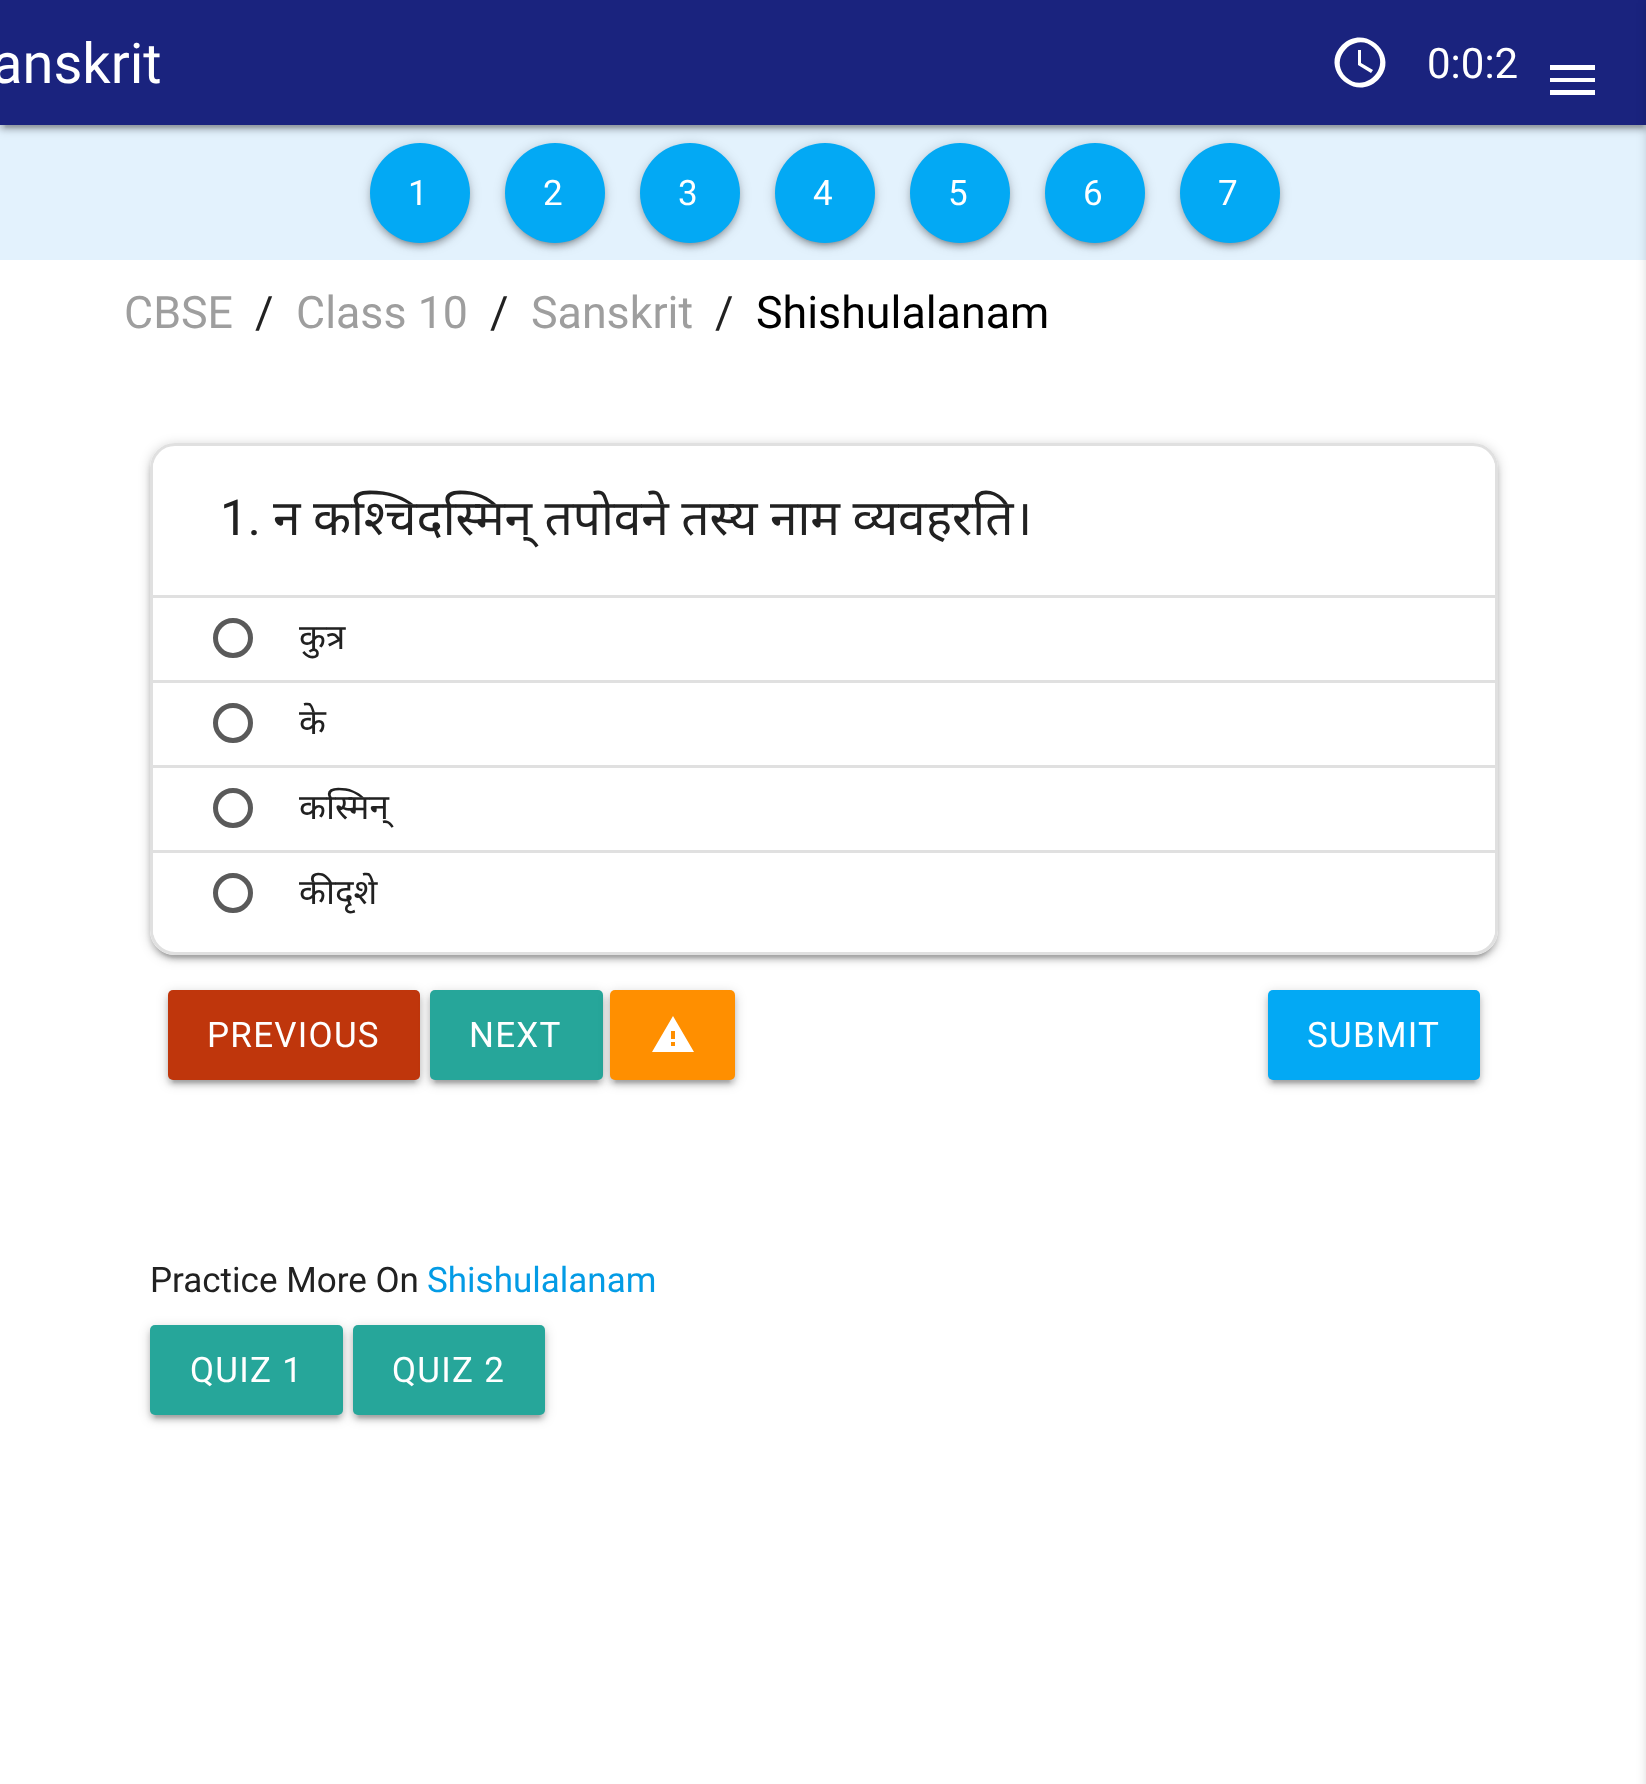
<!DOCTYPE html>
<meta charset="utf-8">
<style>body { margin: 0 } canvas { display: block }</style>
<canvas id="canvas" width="1646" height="1784"></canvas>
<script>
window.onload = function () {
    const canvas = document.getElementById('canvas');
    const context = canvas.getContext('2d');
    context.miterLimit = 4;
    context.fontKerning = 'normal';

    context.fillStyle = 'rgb(255, 255, 255)';
    context.fillRect(0, 0, 1646, 1784);
    context.fillStyle = 'rgb(227, 242, 253)';
    context.fillRect(0, 125, 1646, 135);
    context.fillStyle = 'rgba(0, 0, 0, 0.2)';
    context.filter = 'blur(6px)';
    context.beginPath();
    context.roundRect(370, 145, 100, 100, 50);
    context.fill();
    context.filter = 'none';
    context.fillStyle = 'rgba(0, 0, 0, 0.12)';
    context.filter = 'blur(1px)';
    context.beginPath();
    context.roundRect(375, 155, 90, 90, 45);
    context.fill();
    context.filter = 'none';
    context.fillStyle = 'rgba(0, 0, 0, 0.14)';
    context.filter = 'blur(2.5px)';
    context.beginPath();
    context.roundRect(370, 148, 100, 100, 50);
    context.fill();
    context.filter = 'none';
    context.fillStyle = 'rgb(3, 169, 244)';
    context.beginPath();
    context.arc(420, 193, 50, 0, 2 * Math.PI);
    context.fill();
    context.fillStyle = 'rgba(0, 0, 0, 0.2)';
    context.filter = 'blur(6px)';
    context.beginPath();
    context.roundRect(505, 145, 100, 100, 50);
    context.fill();
    context.filter = 'none';
    context.fillStyle = 'rgba(0, 0, 0, 0.12)';
    context.filter = 'blur(1px)';
    context.beginPath();
    context.roundRect(510, 155, 90, 90, 45);
    context.fill();
    context.filter = 'none';
    context.fillStyle = 'rgba(0, 0, 0, 0.14)';
    context.filter = 'blur(2.5px)';
    context.beginPath();
    context.roundRect(505, 148, 100, 100, 50);
    context.fill();
    context.filter = 'none';
    context.fillStyle = 'rgb(3, 169, 244)';
    context.beginPath();
    context.arc(555, 193, 50, 0, 2 * Math.PI);
    context.fill();
    context.fillStyle = 'rgba(0, 0, 0, 0.2)';
    context.filter = 'blur(6px)';
    context.beginPath();
    context.roundRect(640, 145, 100, 100, 50);
    context.fill();
    context.filter = 'none';
    context.fillStyle = 'rgba(0, 0, 0, 0.12)';
    context.filter = 'blur(1px)';
    context.beginPath();
    context.roundRect(645, 155, 90, 90, 45);
    context.fill();
    context.filter = 'none';
    context.fillStyle = 'rgba(0, 0, 0, 0.14)';
    context.filter = 'blur(2.5px)';
    context.beginPath();
    context.roundRect(640, 148, 100, 100, 50);
    context.fill();
    context.filter = 'none';
    context.fillStyle = 'rgb(3, 169, 244)';
    context.beginPath();
    context.arc(690, 193, 50, 0, 2 * Math.PI);
    context.fill();
    context.fillStyle = 'rgba(0, 0, 0, 0.2)';
    context.filter = 'blur(6px)';
    context.beginPath();
    context.roundRect(775, 145, 100, 100, 50);
    context.fill();
    context.filter = 'none';
    context.fillStyle = 'rgba(0, 0, 0, 0.12)';
    context.filter = 'blur(1px)';
    context.beginPath();
    context.roundRect(780, 155, 90, 90, 45);
    context.fill();
    context.filter = 'none';
    context.fillStyle = 'rgba(0, 0, 0, 0.14)';
    context.filter = 'blur(2.5px)';
    context.beginPath();
    context.roundRect(775, 148, 100, 100, 50);
    context.fill();
    context.filter = 'none';
    context.fillStyle = 'rgb(3, 169, 244)';
    context.beginPath();
    context.arc(825, 193, 50, 0, 2 * Math.PI);
    context.fill();
    context.fillStyle = 'rgba(0, 0, 0, 0.2)';
    context.filter = 'blur(6px)';
    context.beginPath();
    context.roundRect(910, 145, 100, 100, 50);
    context.fill();
    context.filter = 'none';
    context.fillStyle = 'rgba(0, 0, 0, 0.12)';
    context.filter = 'blur(1px)';
    context.beginPath();
    context.roundRect(915, 155, 90, 90, 45);
    context.fill();
    context.filter = 'none';
    context.fillStyle = 'rgba(0, 0, 0, 0.14)';
    context.filter = 'blur(2.5px)';
    context.beginPath();
    context.roundRect(910, 148, 100, 100, 50);
    context.fill();
    context.filter = 'none';
    context.fillStyle = 'rgb(3, 169, 244)';
    context.beginPath();
    context.arc(960, 193, 50, 0, 2 * Math.PI);
    context.fill();
    context.fillStyle = 'rgba(0, 0, 0, 0.2)';
    context.filter = 'blur(6px)';
    context.beginPath();
    context.roundRect(1045, 145, 100, 100, 50);
    context.fill();
    context.filter = 'none';
    context.fillStyle = 'rgba(0, 0, 0, 0.12)';
    context.filter = 'blur(1px)';
    context.beginPath();
    context.roundRect(1050, 155, 90, 90, 45);
    context.fill();
    context.filter = 'none';
    context.fillStyle = 'rgba(0, 0, 0, 0.14)';
    context.filter = 'blur(2.5px)';
    context.beginPath();
    context.roundRect(1045, 148, 100, 100, 50);
    context.fill();
    context.filter = 'none';
    context.fillStyle = 'rgb(3, 169, 244)';
    context.beginPath();
    context.arc(1095, 193, 50, 0, 2 * Math.PI);
    context.fill();
    context.fillStyle = 'rgba(0, 0, 0, 0.2)';
    context.filter = 'blur(6px)';
    context.beginPath();
    context.roundRect(1180, 145, 100, 100, 50);
    context.fill();
    context.filter = 'none';
    context.fillStyle = 'rgba(0, 0, 0, 0.12)';
    context.filter = 'blur(1px)';
    context.beginPath();
    context.roundRect(1185, 155, 90, 90, 45);
    context.fill();
    context.filter = 'none';
    context.fillStyle = 'rgba(0, 0, 0, 0.14)';
    context.filter = 'blur(2.5px)';
    context.beginPath();
    context.roundRect(1180, 148, 100, 100, 50);
    context.fill();
    context.filter = 'none';
    context.fillStyle = 'rgb(3, 169, 244)';
    context.beginPath();
    context.arc(1230, 193, 50, 0, 2 * Math.PI);
    context.fill();
    context.fillStyle = 'rgba(0, 0, 0, 0.2)';
    context.filter = 'blur(6px)';
    context.beginPath();
    context.rect(0, 3, 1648, 125);
    context.fill();
    context.filter = 'none';
    context.fillStyle = 'rgba(0, 0, 0, 0.12)';
    context.filter = 'blur(1px)';
    context.beginPath();
    context.rect(5, 13, 1638, 115);
    context.fill();
    context.filter = 'none';
    context.fillStyle = 'rgba(0, 0, 0, 0.14)';
    context.filter = 'blur(2.5px)';
    context.beginPath();
    context.rect(0, 5, 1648, 125);
    context.fill();
    context.filter = 'none';
    context.fillStyle = 'rgb(26, 35, 126)';
    context.fillRect(0, 0, 1646, 125);
    context.fillStyle = 'rgb(255, 255, 255)';
    context.beginPath();
    context.moveTo(1361, 50);
    context.lineTo(1361, 63);
    context.lineTo(1373, 70);
    context.lineTo(1371, 73);
    context.lineTo(1358, 65);
    context.lineTo(1358, 50);
    context.closePath();
    context.moveTo(1346, 77);
    context.bezierCurveTo(1364, 95, 1393, 67, 1374, 48);
    context.bezierCurveTo(1356, 30, 1327, 58, 1346, 77);
    context.closePath();
    context.moveTo(1342, 45);
    context.bezierCurveTo(1366, 22, 1401, 57, 1378, 80);
    context.bezierCurveTo(1354, 103, 1319, 68, 1342, 45);
    context.closePath();
    context.fill();
    context.beginPath();
    context.moveTo(1550, 65);
    context.lineTo(1595, 65);
    context.lineTo(1595, 70);
    context.lineTo(1550, 70);
    context.closePath();
    context.moveTo(1550, 82);
    context.lineTo(1550, 78);
    context.lineTo(1595, 78);
    context.lineTo(1595, 82);
    context.closePath();
    context.moveTo(1550, 95);
    context.lineTo(1550, 90);
    context.lineTo(1595, 90);
    context.lineTo(1595, 95);
    context.closePath();
    context.fill();
    context.fillStyle = 'rgba(0, 0, 0, 0.2)';
    context.filter = 'blur(6px)';
    context.beginPath();
    context.rect(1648, 3, 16, 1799);
    context.fill();
    context.filter = 'none';
    context.save();
    context.beginPath();
    context.moveTo(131, 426);
    context.lineTo(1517, 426);
    context.lineTo(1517, 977);
    context.lineTo(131, 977);
    context.closePath();
    context.moveTo(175, 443);
    context.lineTo(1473, 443);
    context.bezierCurveTo(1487, 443, 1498, 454, 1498, 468);
    context.lineTo(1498, 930);
    context.bezierCurveTo(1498, 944, 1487, 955, 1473, 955);
    context.lineTo(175, 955);
    context.bezierCurveTo(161, 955, 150, 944, 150, 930);
    context.lineTo(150, 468);
    context.bezierCurveTo(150, 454, 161, 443, 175, 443);
    context.closePath();
    context.clip('evenodd');
    context.filter = 'blur(6px)';
    context.beginPath();
    context.roundRect(150, 445, 1348, 513, 25);
    context.fill();
    context.filter = 'none';
    context.restore();
    context.save();
    context.beginPath();
    context.moveTo(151, 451);
    context.lineTo(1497, 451);
    context.lineTo(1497, 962);
    context.lineTo(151, 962);
    context.closePath();
    context.moveTo(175, 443);
    context.lineTo(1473, 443);
    context.bezierCurveTo(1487, 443, 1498, 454, 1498, 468);
    context.lineTo(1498, 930);
    context.bezierCurveTo(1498, 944, 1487, 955, 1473, 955);
    context.lineTo(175, 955);
    context.bezierCurveTo(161, 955, 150, 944, 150, 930);
    context.lineTo(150, 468);
    context.bezierCurveTo(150, 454, 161, 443, 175, 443);
    context.closePath();
    context.clip('evenodd');
    context.fillStyle = 'rgba(0, 0, 0, 0.12)';
    context.filter = 'blur(1px)';
    context.beginPath();
    context.roundRect(155, 455, 1338, 503, 20);
    context.fill();
    context.filter = 'none';
    context.restore();
    context.save();
    context.beginPath();
    context.moveTo(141, 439);
    context.lineTo(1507, 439);
    context.lineTo(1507, 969);
    context.lineTo(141, 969);
    context.closePath();
    context.moveTo(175, 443);
    context.lineTo(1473, 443);
    context.bezierCurveTo(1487, 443, 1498, 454, 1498, 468);
    context.lineTo(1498, 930);
    context.bezierCurveTo(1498, 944, 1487, 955, 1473, 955);
    context.lineTo(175, 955);
    context.bezierCurveTo(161, 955, 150, 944, 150, 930);
    context.lineTo(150, 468);
    context.bezierCurveTo(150, 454, 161, 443, 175, 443);
    context.closePath();
    context.clip('evenodd');
    context.fillStyle = 'rgba(0, 0, 0, 0.14)';
    context.filter = 'blur(2.5px)';
    context.beginPath();
    context.roundRect(150, 448, 1348, 512, 25);
    context.fill();
    context.filter = 'none';
    context.restore();
    context.beginPath();
    context.roundRect(151.5, 444.5, 1345, 509, 23.5);
    context.strokeStyle = 'rgb(224, 224, 224)';
    context.lineWidth = 3;
    context.stroke();
    context.save();
    context.beginPath();
    context.roundRect(153, 445, 1342, 508, 23);
    context.clip();
    context.fillStyle = 'rgb(255, 255, 255)';
    context.fillRect(153, 463, 1342, 132);
    context.restore();
    context.fillStyle = 'rgb(224, 224, 224)';
    context.fillRect(153, 595, 1342, 3);
    context.fillRect(153, 680, 1342, 3);
    context.beginPath();
    context.arc(233, 638, 17.5, 0, 2 * Math.PI);
    context.strokeStyle = 'rgb(90, 90, 90)';
    context.lineWidth = 5;
    context.stroke();
    context.fillRect(153, 765, 1342, 3);
    context.beginPath();
    context.arc(233, 723, 17.5, 0, 2 * Math.PI);
    context.stroke();
    context.fillRect(153, 850, 1342, 3);
    context.beginPath();
    context.arc(233, 808, 17.5, 0, 2 * Math.PI);
    context.stroke();
    context.save();
    context.beginPath();
    context.roundRect(153, 445, 1342, 508, 23);
    context.clip();
    context.fillStyle = 'rgb(255, 255, 255)';
    context.fillRect(153, 853, 1342, 82);
    context.restore();
    context.beginPath();
    context.arc(233, 893, 17.5, 0, 2 * Math.PI);
    context.stroke();
    context.fillStyle = 'rgba(0, 0, 0, 0.2)';
    context.filter = 'blur(6px)';
    context.beginPath();
    context.roundRect(168, 993, 252, 90, 5);
    context.fill();
    context.filter = 'none';
    context.fillStyle = 'rgba(0, 0, 0, 0.12)';
    context.filter = 'blur(1px)';
    context.beginPath();
    context.rect(173, 1003, 242, 80);
    context.fill();
    context.filter = 'none';
    context.fillStyle = 'rgba(0, 0, 0, 0.14)';
    context.filter = 'blur(2.5px)';
    context.beginPath();
    context.roundRect(168, 995, 252, 90, 5);
    context.fill();
    context.filter = 'none';
    context.fillStyle = 'rgb(191, 54, 12)';
    context.beginPath();
    context.roundRect(168, 990, 252, 90, 5);
    context.fill();
    context.fillStyle = 'rgba(0, 0, 0, 0.2)';
    context.filter = 'blur(6px)';
    context.beginPath();
    context.roundRect(430, 993, 173, 90, 5);
    context.fill();
    context.filter = 'none';
    context.fillStyle = 'rgba(0, 0, 0, 0.12)';
    context.filter = 'blur(1px)';
    context.beginPath();
    context.rect(435, 1003, 163, 80);
    context.fill();
    context.filter = 'none';
    context.fillStyle = 'rgba(0, 0, 0, 0.14)';
    context.filter = 'blur(2.5px)';
    context.beginPath();
    context.roundRect(430, 995, 173, 90, 5);
    context.fill();
    context.filter = 'none';
    context.fillStyle = 'rgb(38, 166, 154)';
    context.beginPath();
    context.roundRect(430, 990, 173, 90, 5);
    context.fill();
    context.fillStyle = 'rgba(0, 0, 0, 0.2)';
    context.filter = 'blur(6px)';
    context.beginPath();
    context.roundRect(610, 993, 125, 90, 5);
    context.fill();
    context.filter = 'none';
    context.fillStyle = 'rgba(0, 0, 0, 0.12)';
    context.filter = 'blur(1px)';
    context.beginPath();
    context.rect(615, 1003, 115, 80);
    context.fill();
    context.filter = 'none';
    context.fillStyle = 'rgba(0, 0, 0, 0.14)';
    context.filter = 'blur(2.5px)';
    context.beginPath();
    context.roundRect(610, 995, 125, 90, 5);
    context.fill();
    context.filter = 'none';
    context.fillStyle = 'rgb(255, 143, 0)';
    context.beginPath();
    context.roundRect(610, 990, 125, 90, 5);
    context.fill();
    context.fillStyle = 'rgb(255, 255, 255)';
    context.beginPath();
    context.moveTo(675, 1039);
    context.lineTo(675, 1031);
    context.lineTo(671, 1031);
    context.lineTo(671, 1039);
    context.closePath();
    context.moveTo(675, 1046);
    context.lineTo(675, 1042);
    context.lineTo(671, 1042);
    context.lineTo(671, 1046);
    context.closePath();
    context.moveTo(652, 1052);
    context.lineTo(673, 1016);
    context.lineTo(694, 1052);
    context.closePath();
    context.fill();
    context.fillStyle = 'rgba(0, 0, 0, 0.2)';
    context.filter = 'blur(6px)';
    context.beginPath();
    context.roundRect(1268, 993, 212, 90, 5);
    context.fill();
    context.filter = 'none';
    context.fillStyle = 'rgba(0, 0, 0, 0.12)';
    context.filter = 'blur(1px)';
    context.beginPath();
    context.rect(1273, 1003, 202, 80);
    context.fill();
    context.filter = 'none';
    context.fillStyle = 'rgba(0, 0, 0, 0.14)';
    context.filter = 'blur(2.5px)';
    context.beginPath();
    context.roundRect(1268, 995, 212, 90, 5);
    context.fill();
    context.filter = 'none';
    context.fillStyle = 'rgb(3, 169, 244)';
    context.beginPath();
    context.roundRect(1268, 990, 212, 90, 5);
    context.fill();
    context.fillStyle = 'rgba(0, 0, 0, 0.2)';
    context.filter = 'blur(6px)';
    context.beginPath();
    context.roundRect(150, 1328, 193, 90, 5);
    context.fill();
    context.filter = 'none';
    context.fillStyle = 'rgba(0, 0, 0, 0.12)';
    context.filter = 'blur(1px)';
    context.beginPath();
    context.rect(155, 1338, 183, 80);
    context.fill();
    context.filter = 'none';
    context.fillStyle = 'rgba(0, 0, 0, 0.14)';
    context.filter = 'blur(2.5px)';
    context.beginPath();
    context.roundRect(150, 1330, 193, 90, 5);
    context.fill();
    context.filter = 'none';
    context.fillStyle = 'rgb(38, 166, 154)';
    context.beginPath();
    context.roundRect(150, 1325, 193, 90, 5);
    context.fill();
    context.fillStyle = 'rgba(0, 0, 0, 0.2)';
    context.filter = 'blur(6px)';
    context.beginPath();
    context.roundRect(353, 1328, 192, 90, 5);
    context.fill();
    context.filter = 'none';
    context.fillStyle = 'rgba(0, 0, 0, 0.12)';
    context.filter = 'blur(1px)';
    context.beginPath();
    context.rect(358, 1338, 182, 80);
    context.fill();
    context.filter = 'none';
    context.fillStyle = 'rgba(0, 0, 0, 0.14)';
    context.filter = 'blur(2.5px)';
    context.beginPath();
    context.roundRect(353, 1330, 192, 90, 5);
    context.fill();
    context.filter = 'none';
    context.fillStyle = 'rgb(38, 166, 154)';
    context.beginPath();
    context.roundRect(353, 1325, 192, 90, 5);
    context.fill();
    context.font = '56px Roboto';
    context.fillStyle = 'rgb(255, 255, 255)';
    context.fillText('anskrit', -8, 83);
    context.font = '42px Roboto';
    context.fillText('0:0:2', 1427, 78);
    context.letterSpacing = '1.25px';
    context.font = '35px Roboto';
    context.fillText('1', 408, 205);
    context.fillText('2', 543, 205);
    context.fillText('3', 678, 205);
    context.fillText('4', 813, 205);
    context.fillText('5', 948, 205);
    context.fillText('6', 1083, 205);
    context.fillText('7', 1218, 205);
    context.letterSpacing = '0px';
    context.font = '44.75px Roboto';
    context.fillStyle = 'rgb(158, 158, 158)';
    context.fillText('CBSE', 124, 328);
    context.fillStyle = 'rgb(33, 33, 33)';
    context.fillText('/', 255, 328);
    context.fillStyle = 'rgb(158, 158, 158)';
    context.fillText('Class 10', 296, 328);
    context.fillStyle = 'rgb(33, 33, 33)';
    context.fillText('/', 490, 328);
    context.fillStyle = 'rgb(158, 158, 158)';
    context.fillText('Sanskrit', 531, 328);
    context.fillStyle = 'rgb(33, 33, 33)';
    context.fillText('/', 715, 328);
    context.fillStyle = 'rgb(0, 0, 0)';
    context.fillText('Shishulalanam', 756, 328);
    context.font = '49.6px Roboto';
    context.fillStyle = 'rgb(33, 33, 33)';
    context.fillText('1.', 220, 535);
    context.wordSpacing = '-0.5px';
    context.font = '49.6px Noto Sans';
    context.fillText('न कश्चिदस्मिन् तपोवने तस्य नाम व्यवहरति।', 273, 535);
    context.wordSpacing = '0px';
    context.font = '35px Noto Sans';
    context.fillText('कुत्र', 299, 649);
    context.fillText('के', 299, 734);
    context.fillText('कस्मिन्', 299, 819);
    context.fillText('कीदृशे', 299, 904);
    context.letterSpacing = '1.25px';
    context.font = '35px Roboto';
    context.fillStyle = 'rgb(255, 255, 255)';
    context.fillText('PREVIOUS', 207, 1047);
    context.fillText('NEXT', 469, 1047);
    context.fillText('SUBMIT', 1307, 1047);
    context.letterSpacing = '0px';
    context.fillStyle = 'rgb(33, 33, 33)';
    context.fillText('Practice More On', 150, 1292);
    context.fillStyle = 'rgb(3, 155, 229)';
    context.fillText('Shishulalanam', 427, 1292);
    context.letterSpacing = '1.25px';
    context.fillStyle = 'rgb(255, 255, 255)';
    context.fillText('QUIZ 1', 190, 1382);
    context.fillText('QUIZ 2', 392, 1382);
};
</script>
